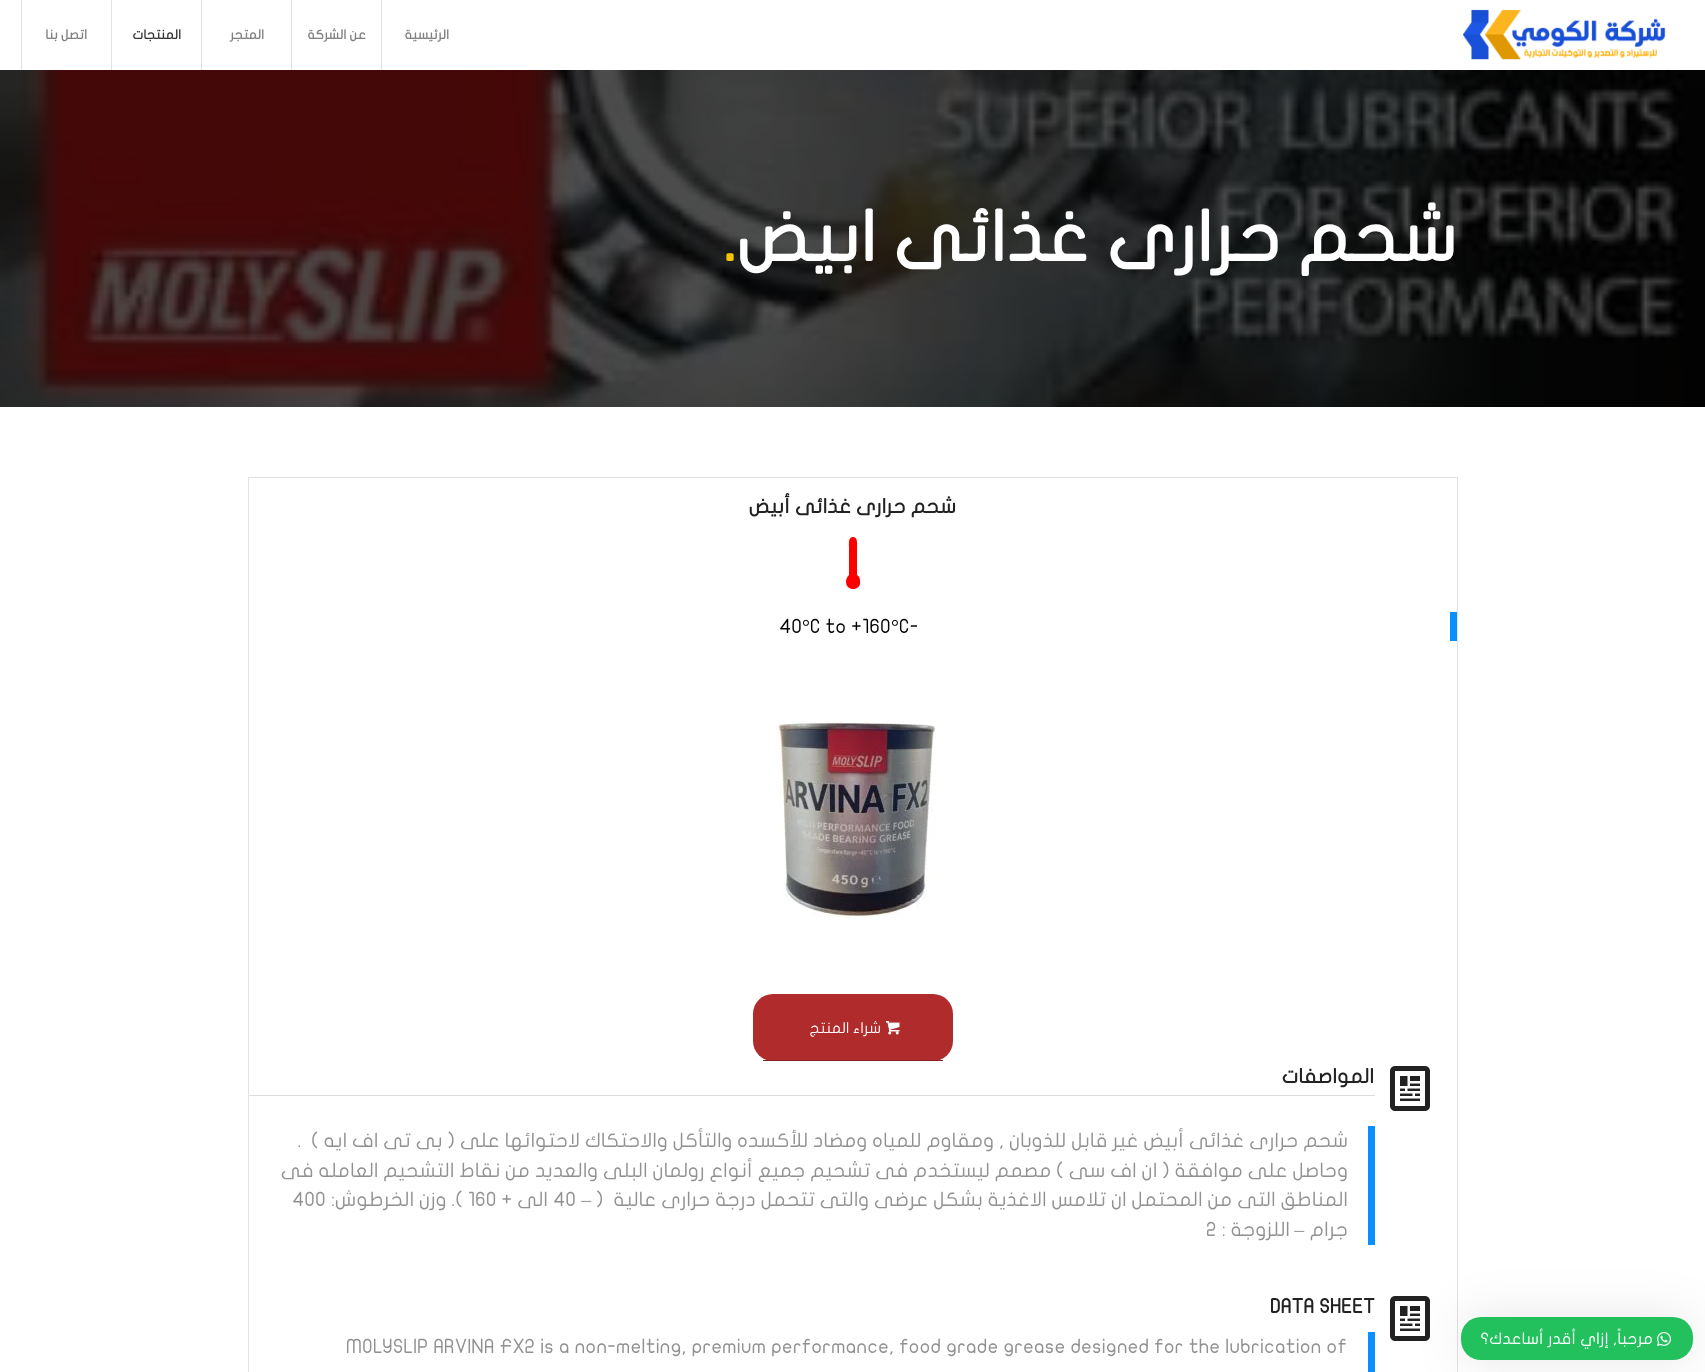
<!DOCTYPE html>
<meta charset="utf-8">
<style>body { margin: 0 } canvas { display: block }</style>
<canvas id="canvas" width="1705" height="1372"></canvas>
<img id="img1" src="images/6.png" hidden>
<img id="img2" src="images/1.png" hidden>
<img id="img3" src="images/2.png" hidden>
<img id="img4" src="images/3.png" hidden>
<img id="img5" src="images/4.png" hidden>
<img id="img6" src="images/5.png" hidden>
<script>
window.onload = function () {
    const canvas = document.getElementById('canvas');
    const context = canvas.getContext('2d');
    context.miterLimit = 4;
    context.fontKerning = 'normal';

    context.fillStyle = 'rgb(255, 255, 255)';
    context.fillRect(0, 0, 1705, 1372);
    context.strokeStyle = 'rgb(225, 225, 225)';
    context.strokeRect(248.5, 477.5, 1209, 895);
    context.drawImage(document.getElementById('img1'), 1390, 1296, 40, 45);
    context.fillStyle = 'rgba(0, 0, 0, 0.1)';
    context.filter = 'blur(25px)';
    context.beginPath();
    context.roundRect(1461, 1317, 232, 43, 20);
    context.fill();
    context.filter = 'none';
    context.fillStyle = 'rgb(34, 193, 94)';
    context.beginPath();
    context.roundRect(1461, 1317, 232, 43, 20);
    context.fill();
    context.drawImage(document.getElementById('img2'), 1657, 1332, 14, 14);
    context.drawImage(document.getElementById('img3'), 1463, 9, 203, 51);
    context.fillStyle = 'rgb(225, 225, 225)';
    context.fillRect(381, 0, 1, 70);
    context.fillRect(291, 0, 1, 70);
    context.fillRect(201, 0, 1, 70);
    context.fillRect(111, 0, 1, 70);
    context.fillRect(21, 0, 1, 70);
    context.drawImage(document.getElementById('img4'), 0, 70, 1705, 337);
    context.fillStyle = 'rgb(255, 0, 0)';
    context.beginPath();
    context.moveTo(846, 582);
    context.bezierCurveTo(846, 579, 847, 577, 849, 575);
    context.lineTo(849, 547);
    context.bezierCurveTo(849, 544, 848, 537, 853, 537);
    context.bezierCurveTo(858, 537, 857, 544, 857, 547);
    context.lineTo(857, 575);
    context.bezierCurveTo(859, 576, 860, 578, 860, 581);
    context.bezierCurveTo(862, 591, 846, 592, 846, 582);
    context.closePath();
    context.fill();
    context.fillStyle = 'rgb(8, 144, 255)';
    context.fillRect(1450, 612, 7, 29);
    context.drawImage(document.getElementById('img5'), 776, 721, 160, 196);
    context.fillStyle = 'rgb(176, 43, 44)';
    context.beginPath();
    context.roundRect(753, 994, 200, 67, 20);
    context.fill();
    context.fillStyle = 'rgb(139, 33, 33)';
    context.fillRect(763, 1060, 180, 1);
    context.drawImage(document.getElementById('img6'), 886, 1021, 14, 14);
    context.drawImage(document.getElementById('img1'), 1390, 1066, 40, 45);
    context.fillStyle = 'rgb(221, 221, 221)';
    context.fillRect(249, 1095, 1126, 1);
    context.fillStyle = 'rgb(8, 144, 255)';
    context.fillRect(1368, 1126, 7, 119);
    context.fillRect(1368, 1332, 7, 40);
    context.direction = 'rtl';
    context.font = '16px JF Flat';
    context.fillStyle = 'rgb(255, 255, 255)';
    context.fillText('مرحباً, إزاي أقدر أساعدك؟', 1653, 1344);
    context.font = 'bold 13px JF Flat';
    context.fillStyle = 'rgb(128, 128, 128)';
    context.fillText('الرئيسية', 449, 39);
    context.fillText('عن الشركة', 366, 39);
    context.fillText('المتجر', 264, 39);
    context.fillStyle = 'rgb(51, 51, 51)';
    context.fillText('المنتجات', 181, 39);
    context.fillStyle = 'rgb(128, 128, 128)';
    context.fillText('اتصل بنا', 87, 39);
    context.font = 'bold 70px JF Flat';
    context.fillStyle = 'rgb(255, 255, 255)';
    context.fillText('شحم حرارى غذائى ابيض', 1457, 261);
    context.direction = 'ltr';
    context.fillStyle = 'rgb(246, 197, 1)';
    context.fillText('.', 723, 261);
    context.direction = 'rtl';
    context.font = 'bold 20px JF Flat';
    context.fillStyle = 'rgb(34, 34, 34)';
    context.fillText('شحم حرارى غذائى أبيض', 956, 513);
    context.direction = 'ltr';
    context.font = '19.75px JF Flat';
    context.fillStyle = 'rgb(0, 0, 0)';
    context.fillText('C-', 899, 633);
    context.font = '19.75px Liberation Serif';
    context.fillText('°', 891, 633);
    context.font = '19.75px JF Flat';
    context.fillText('C to +160', 810, 633);
    context.font = '19.75px Liberation Serif';
    context.fillText('°', 802, 633);
    context.font = '19.75px JF Flat';
    context.fillText('40', 779, 633);
    context.direction = 'rtl';
    context.font = '15px JF Flat';
    context.fillStyle = 'rgb(255, 255, 255)';
    context.fillText('شراء المنتج', 881, 1033);
    context.font = 'bold 20px JF Flat';
    context.fillStyle = 'rgb(34, 34, 34)';
    context.fillText('المواصفات', 1374, 1083);
    context.font = '19.75px JF Flat';
    context.fillStyle = 'rgb(145, 145, 145)';
    context.fillText('شحم حرارى غذائى أبيض غير قابل للذوبان , ومقاوم للمياه ومضاد للأكسده والتأكل والاحتكاك لاحتوائها على ( بى تى اف ايه )  .', 1348, 1147);
    context.fillText('وحاصل على موافقة ( ان اف سى ) مصمم ليستخدم فى تشحيم جميع أنواع رولمان البلى والعديد من نقاط التشحيم العامله فى', 1348, 1177);
    context.fillText('المناطق التى من المحتمل ان تلامس الاغذية بشكل عرضى والتى تتحمل درجة حرارى عالية  (', 1348, 1206);
    context.font = '19.75px Liberation Serif';
    context.fillText('–', 591, 1206);
    context.direction = 'ltr';
    context.font = '19.75px JF Flat';
    context.fillText('40', 553, 1206);
    context.direction = 'rtl';
    context.fillText('الى +', 548, 1206);
    context.direction = 'ltr';
    context.fillText('160', 468, 1206);
    context.direction = 'rtl';
    context.fillText('). وزن الخرطوش:', 463, 1206);
    context.direction = 'ltr';
    context.fillText('400', 292, 1206);
    context.direction = 'rtl';
    context.fillText('جرام', 1348, 1236);
    context.font = '19.75px Liberation Serif';
    context.fillText('–', 1304, 1236);
    context.font = '19.75px JF Flat';
    context.fillText('اللزوجة :', 1290, 1236);
    context.direction = 'ltr';
    context.fillText('2', 1206, 1236);
    context.font = 'bold 20px JF Flat';
    context.fillStyle = 'rgb(34, 34, 34)';
    context.fillText('DATA SHEET', 1270, 1313);
    context.font = '19.75px JF Flat';
    context.fillStyle = 'rgb(145, 145, 145)';
    context.fillText('MOLYSLIP ARVINA FX2 is a non-melting, premium performance, food grade grease designed for the lubrication of', 346, 1353);
};
</script>
